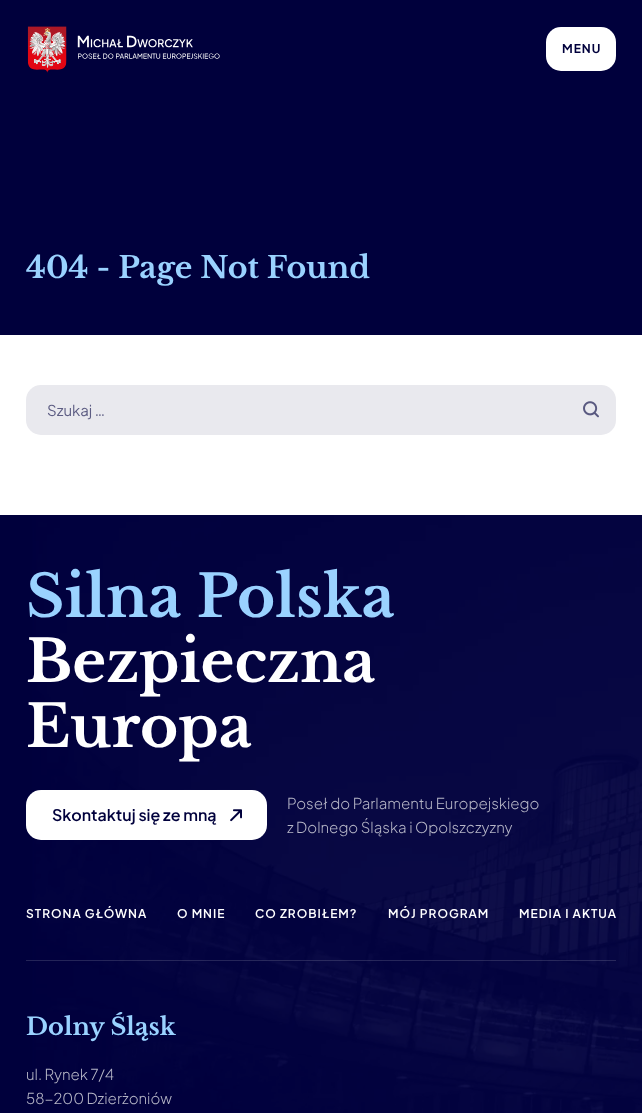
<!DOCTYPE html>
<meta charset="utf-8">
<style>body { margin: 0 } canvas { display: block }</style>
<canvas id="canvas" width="642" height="1113"></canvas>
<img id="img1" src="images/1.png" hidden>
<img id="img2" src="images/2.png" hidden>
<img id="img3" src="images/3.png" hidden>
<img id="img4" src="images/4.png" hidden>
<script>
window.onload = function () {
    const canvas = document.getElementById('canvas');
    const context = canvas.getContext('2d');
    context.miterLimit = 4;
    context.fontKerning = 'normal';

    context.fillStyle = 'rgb(255, 255, 255)';
    context.fillRect(0, 0, 642, 1113);
    context.fillStyle = 'rgb(0, 0, 60)';
    context.fillRect(0, 0, 642, 335);
    context.drawImage(document.getElementById('img1'), 27, 26, 193, 47);
    context.fillStyle = 'rgb(255, 255, 255)';
    context.beginPath();
    context.roundRect(546, 27, 70, 44, 15);
    context.fill();
    context.fillStyle = 'rgb(233, 233, 238)';
    context.beginPath();
    context.roundRect(26, 385, 590, 50, 15);
    context.fill();
    context.drawImage(document.getElementById('img2'), 583, 401, 16, 17);
    context.fillStyle = 'rgb(0, 0, 60)';
    context.fillRect(0, 515, 32, 598);
    context.drawImage(document.getElementById('img3'), 32, 515, 610, 598);
    context.fillStyle = 'rgb(255, 255, 255)';
    context.beginPath();
    context.roundRect(26, 790, 241, 50, 15);
    context.fill();
    context.drawImage(document.getElementById('img4'), 230, 809, 12, 13);
    context.fillStyle = 'rgba(255, 255, 255, 0.14)';
    context.fillRect(26, 960, 590, 1);
    context.letterSpacing = '1px';
    context.font = 'bold 12px Plus Jakarta Sans';
    context.fillStyle = 'rgb(0, 0, 60)';
    context.fillText('MENU', 562, 53);
    context.letterSpacing = '0px';
    context.font = 'bold 30px Libre Baskerville';
    context.fillStyle = 'rgb(154, 210, 255)';
    context.fillText('404 - Page Not Found', 26, 278);
    context.font = '15px Plus Jakarta Sans';
    context.fillStyle = 'rgb(93, 93, 131)';
    context.fillText('Szukaj …', 47, 416);
    context.font = 'bold 58px Libre Baskerville';
    context.fillStyle = 'rgb(154, 210, 255)';
    context.fillText('Silna Polska', 26, 617);
    context.fillStyle = 'rgb(255, 255, 255)';
    context.fillText('Bezpieczna', 26, 682);
    context.fillText('Europa', 26, 747);
    context.font = '600 16px Plus Jakarta Sans';
    context.fillStyle = 'rgb(0, 0, 60)';
    context.fillText('Skontaktuj się ze mną', 52, 821);
    context.font = '300 15px Plus Jakarta Sans';
    context.fillStyle = 'rgb(181, 181, 198)';
    context.fillText('Poseł do Parlamentu Europejskiego', 287, 809);
    context.fillText('z Dolnego Śląska i Opolszczyzny', 287, 833);
    context.letterSpacing = '1px';
    context.font = '600 12px Plus Jakarta Sans';
    context.fillStyle = 'rgb(255, 255, 255)';
    context.fillText('STRONA GŁÓWNA', 26, 918);
    context.fillText('O MNIE', 177, 918);
    context.fillText('CO ZROBIŁEM?', 255, 918);
    context.fillText('MÓJ PROGRAM', 388, 918);
    context.fillText('MEDIA I AKTUA', 519, 918);
    context.letterSpacing = '0px';
    context.font = 'bold 24px Libre Baskerville';
    context.fillStyle = 'rgb(154, 210, 255)';
    context.fillText('Dolny Śląsk', 26, 1035);
    context.font = '300 15px Plus Jakarta Sans';
    context.fillStyle = 'rgb(181, 181, 198)';
    context.fillText('ul. Rynek 7/4', 26, 1080);
    context.fillText('58-200 Dzierżoniów', 26, 1104);
};
</script>
